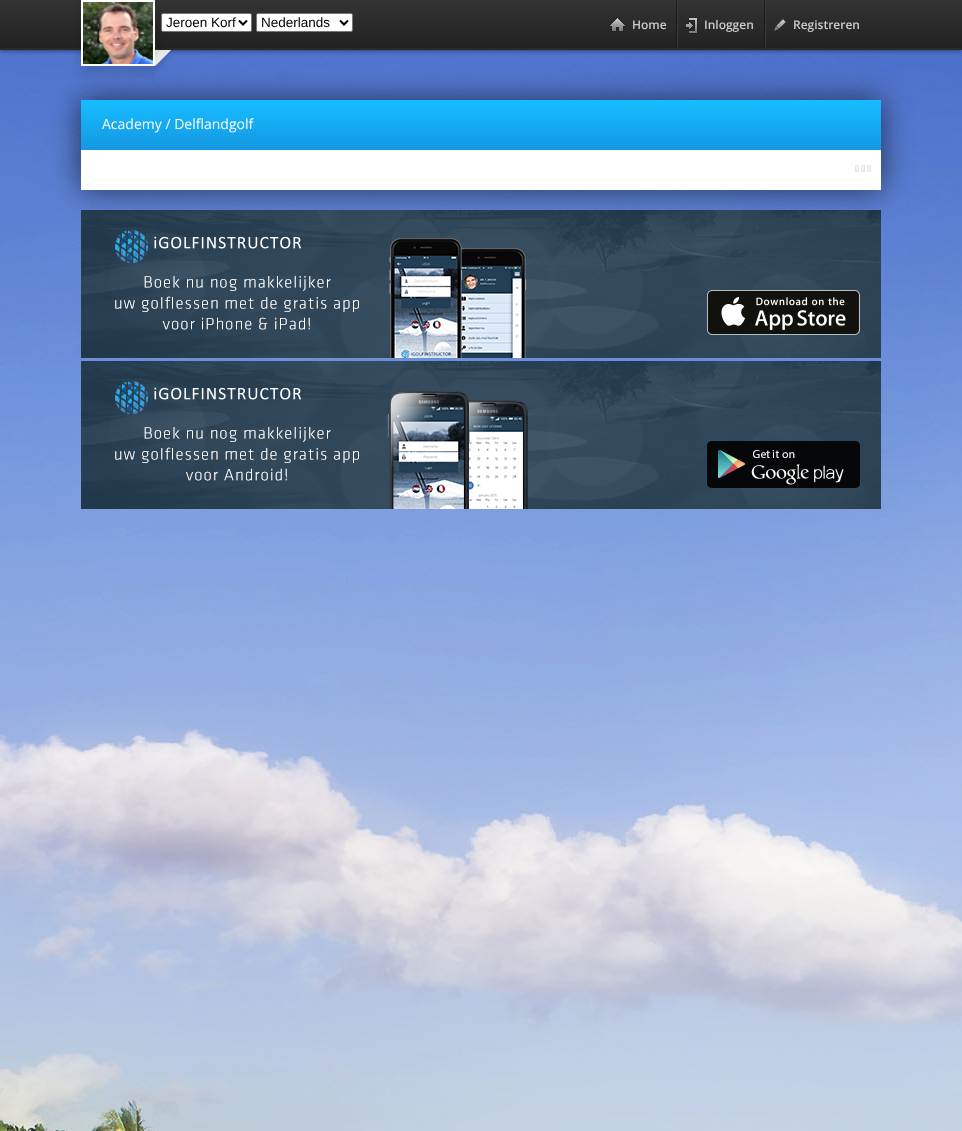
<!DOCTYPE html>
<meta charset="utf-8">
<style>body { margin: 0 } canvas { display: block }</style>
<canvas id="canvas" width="962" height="1131"></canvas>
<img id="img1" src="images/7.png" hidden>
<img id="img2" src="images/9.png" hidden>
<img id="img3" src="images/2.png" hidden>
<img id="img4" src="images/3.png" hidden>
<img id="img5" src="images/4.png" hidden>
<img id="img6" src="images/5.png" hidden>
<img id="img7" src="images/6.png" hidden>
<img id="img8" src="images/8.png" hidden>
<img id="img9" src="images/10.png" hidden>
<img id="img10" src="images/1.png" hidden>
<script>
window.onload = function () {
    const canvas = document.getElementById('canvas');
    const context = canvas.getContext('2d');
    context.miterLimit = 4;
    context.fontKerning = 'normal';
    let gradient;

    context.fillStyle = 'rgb(255, 255, 255)';
    context.fillRect(0, 0, 962, 1131);
    context.drawImage(document.getElementById('img1'), 0, 50, 962, 1081);
    context.fillStyle = 'rgba(0, 0, 0, 0.6)';
    context.filter = 'blur(2.5px)';
    context.beginPath();
    context.rect(0, 0, 962, 50);
    context.fill();
    context.filter = 'none';
    gradient = context.createLinearGradient(481, 0, 481, 48);
    gradient.addColorStop(0, 'rgb(51, 51, 51)');
    gradient.addColorStop(1, 'rgb(34, 34, 34)');
    context.fillStyle = gradient;
    context.fillRect(0, 0, 962, 48);
    context.fillStyle = 'rgb(42, 42, 42)';
    context.fillRect(0, 48, 962, 2);
    context.drawImage(document.getElementById('img2'), 81, 210, 800, 148);
    context.fillStyle = 'rgba(0, 0, 0, 0.6)';
    context.filter = 'blur(15px)';
    context.beginPath();
    context.rect(81, 100, 800, 90);
    context.fill();
    context.filter = 'none';
    context.drawImage(document.getElementById('img3'), 74, 0, 81, 79);
    context.drawImage(document.getElementById('img4'), 83, 2, 70, 62);
    context.fillStyle = 'rgb(255, 255, 255)';
    context.beginPath();
    context.roundRect(161.5, 13.5, 90, 18, 1.5);
    context.fill();
    context.strokeStyle = 'rgb(118, 118, 118)';
    context.stroke();
    context.beginPath();
    context.moveTo(239, 20.5);
    context.lineTo(243, 24.5);
    context.lineTo(247, 20.5);
    context.strokeStyle = 'rgb(0, 0, 0)';
    context.lineWidth = 2;
    context.stroke();
    context.beginPath();
    context.roundRect(256.5, 13.5, 96, 18, 1.5);
    context.fill();
    context.strokeStyle = 'rgb(118, 118, 118)';
    context.lineWidth = 1;
    context.stroke();
    context.beginPath();
    context.moveTo(340, 20.5);
    context.lineTo(344, 24.5);
    context.lineTo(348, 20.5);
    context.strokeStyle = 'rgb(0, 0, 0)';
    context.lineWidth = 2;
    context.stroke();
    context.fillStyle = 'rgb(26, 26, 26)';
    context.fillRect(676, 0, 1, 48);
    context.drawImage(document.getElementById('img5'), 609, 17, 17, 15);
    context.fillRect(764, 0, 1, 48);
    context.fillStyle = 'rgb(58, 58, 58)';
    context.fillRect(677, 0, 1, 48);
    context.drawImage(document.getElementById('img6'), 685, 17, 13, 17);
    context.fillRect(765, 0, 1, 48);
    context.drawImage(document.getElementById('img7'), 774, 19, 12, 12);
    context.fillStyle = 'rgb(255, 255, 255)';
    context.fillRect(81, 150, 800, 40);
    gradient = context.createLinearGradient(481, 100, 481, 150);
    gradient.addColorStop(0, 'rgb(22, 189, 255)');
    gradient.addColorStop(1, 'rgb(20, 152, 226)');
    gradient.addColorStop(1, 'rgb(255, 255, 255)');
    context.fillStyle = gradient;
    context.fillRect(81, 100, 800, 50);
    context.drawImage(document.getElementById('img8'), 855, 165, 16, 7);
    context.drawImage(document.getElementById('img9'), 81, 361, 800, 148);
    context.font = '13.5px Liberation Sans';
    context.fillStyle = 'rgb(0, 0, 0)';
    context.fillText('Jeroen Korf', 166, 27);
    context.drawImage(document.getElementById('img10'), 155, 16, 17, 58);
    context.fillText('Nederlands', 261, 27);
    context.font = '600 12px Open Sans';
    context.fillStyle = 'rgb(204, 204, 204)';
    context.fillText('Home', 632, 29);
    context.fillText('Inloggen', 704, 29);
    context.fillText('Registreren', 793, 29);
    context.font = '14px Open Sans';
    context.fillStyle = 'rgb(255, 255, 255)';
    context.fillText('Academy / Delflandgolf', 102, 129);
};
</script>
